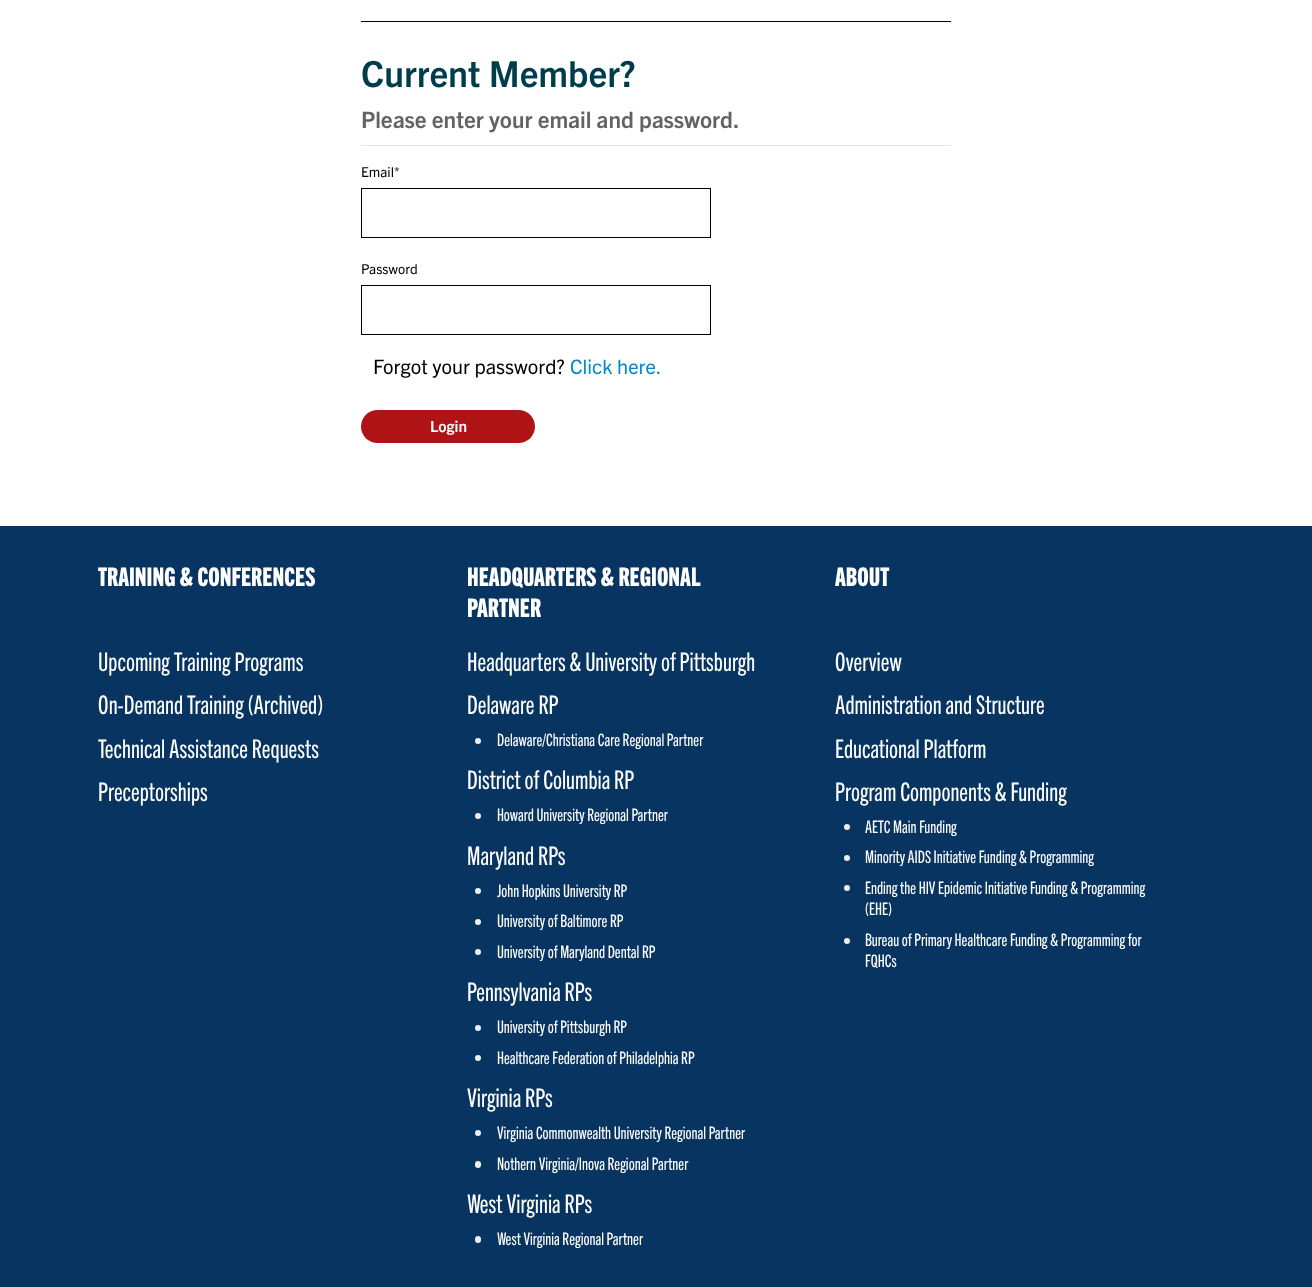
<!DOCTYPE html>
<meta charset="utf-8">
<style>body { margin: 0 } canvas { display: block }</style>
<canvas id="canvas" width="1312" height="1287"></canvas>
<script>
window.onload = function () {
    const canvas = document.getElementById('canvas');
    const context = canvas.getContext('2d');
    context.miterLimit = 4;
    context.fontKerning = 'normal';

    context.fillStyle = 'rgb(7, 52, 96)';
    context.fillRect(0, 0, 1312, 1287);
    context.fillStyle = 'rgb(255, 255, 255)';
    context.fillRect(0, 0, 1312, 526);
    context.fillStyle = 'rgb(0, 0, 0)';
    context.fillRect(361, 21, 590, 1);
    context.fillStyle = 'rgb(229, 229, 229)';
    context.fillRect(361, 145, 590, 1);
    context.strokeStyle = 'rgb(0, 0, 0)';
    context.strokeRect(361.5, 188.5, 349, 49);
    context.strokeRect(361.5, 285.5, 349, 49);
    context.fillStyle = 'rgb(175, 19, 22)';
    context.beginPath();
    context.roundRect(361, 410, 174, 33, 16.5);
    context.fill();
    context.fillStyle = 'rgb(239, 239, 239)';
    context.beginPath();
    context.arc(478, 741, 3, 0, 2 * Math.PI);
    context.fill();
    context.beginPath();
    context.arc(478, 816, 3, 0, 2 * Math.PI);
    context.fill();
    context.beginPath();
    context.arc(478, 891, 3, 0, 2 * Math.PI);
    context.fill();
    context.beginPath();
    context.arc(478, 922, 3, 0, 2 * Math.PI);
    context.fill();
    context.beginPath();
    context.arc(478, 952, 3, 0, 2 * Math.PI);
    context.fill();
    context.beginPath();
    context.arc(478, 1028, 3, 0, 2 * Math.PI);
    context.fill();
    context.beginPath();
    context.arc(478, 1058, 3, 0, 2 * Math.PI);
    context.fill();
    context.beginPath();
    context.arc(478, 1133, 3, 0, 2 * Math.PI);
    context.fill();
    context.beginPath();
    context.roundRect(475, 1161, 6, 7, 3);
    context.fill();
    context.beginPath();
    context.roundRect(475, 1236, 6, 7, 3);
    context.fill();
    context.beginPath();
    context.arc(847, 827, 3, 0, 2 * Math.PI);
    context.fill();
    context.beginPath();
    context.arc(847, 858, 3, 0, 2 * Math.PI);
    context.fill();
    context.beginPath();
    context.arc(847, 888, 3, 0, 2 * Math.PI);
    context.fill();
    context.beginPath();
    context.arc(847, 941, 3, 0, 2 * Math.PI);
    context.fill();
    context.font = 'bold 36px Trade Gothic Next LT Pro';
    context.fillStyle = 'rgb(0, 61, 76)';
    context.fillText('Current Member?', 361, 87);
    context.font = 'bold 22.7px Trade Gothic Next LT Pro';
    context.fillStyle = 'rgb(99, 99, 99)';
    context.fillText('Please enter your email and password.', 361, 128);
    context.font = '13.75px Trade Gothic Next LT Pro';
    context.fillStyle = 'rgb(0, 0, 0)';
    context.fillText('Email', 361, 177);
    context.fillStyle = 'rgb(7, 52, 96)';
    context.fillText('*', 394, 177);
    context.fillStyle = 'rgb(0, 0, 0)';
    context.fillText('Password', 361, 274);
    context.font = '20px Trade Gothic Next LT Pro';
    context.fillText('Forgot your password?', 373, 374);
    context.fillStyle = 'rgb(0, 136, 204)';
    context.fillText('Click here.', 570, 374);
    context.font = 'bold 15.5px Trade Gothic Next LT Pro';
    context.fillStyle = 'rgb(255, 255, 255)';
    context.fillText('Login', 430, 432);
    context.font = '800 25.75px Trade Gothic Next LT Pro';
    context.fillText('TRAINING & CONFERENCES', 98, 586);
    context.font = '25.75px "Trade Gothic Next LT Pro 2"';
    context.fillText('Upcoming Training Programs', 98, 671);
    context.fillText('On-Demand Training (Archived)', 98, 714);
    context.fillText('Technical Assistance Requests', 98, 758);
    context.fillText('Preceptorships', 98, 801);
    context.font = '800 25.75px Trade Gothic Next LT Pro';
    context.fillText('HEADQUARTERS & REGIONAL', 467, 586);
    context.fillText('PARTNER', 467, 617);
    context.font = '25.75px "Trade Gothic Next LT Pro 2"';
    context.fillText('Headquarters & University of Pittsburgh', 467, 671);
    context.fillText('Delaware RP', 467, 714);
    context.font = '17.25px "Trade Gothic Next LT Pro 2"';
    context.fillText('Delaware/Christiana Care Regional Partner', 497, 746);
    context.font = '25.75px "Trade Gothic Next LT Pro 2"';
    context.fillText('District of Columbia RP', 467, 789);
    context.font = '17.25px "Trade Gothic Next LT Pro 2"';
    context.fillText('Howard University Regional Partner', 497, 821);
    context.font = '25.75px "Trade Gothic Next LT Pro 2"';
    context.fillText('Maryland RPs', 467, 865);
    context.font = '17.25px "Trade Gothic Next LT Pro 2"';
    context.fillText('John Hopkins University RP', 497, 897);
    context.fillText('University of Baltimore RP', 497, 927);
    context.fillText('University of Maryland Dental RP', 497, 958);
    context.font = '25.75px "Trade Gothic Next LT Pro 2"';
    context.fillText('Pennsylvania RPs', 467, 1001);
    context.font = '17.25px "Trade Gothic Next LT Pro 2"';
    context.fillText('University of Pittsburgh RP', 497, 1033);
    context.fillText('Healthcare Federation of Philadelphia RP', 497, 1064);
    context.font = '25.75px "Trade Gothic Next LT Pro 2"';
    context.fillText('Virginia RPs', 467, 1107);
    context.font = '17.25px "Trade Gothic Next LT Pro 2"';
    context.fillText('Virginia Commonwealth University Regional Partner', 497, 1139);
    context.fillText('Nothern Virginia/Inova Regional Partner', 497, 1170);
    context.font = '25.75px "Trade Gothic Next LT Pro 2"';
    context.fillText('West Virginia RPs', 467, 1213);
    context.font = '17.25px "Trade Gothic Next LT Pro 2"';
    context.fillText('West Virginia Regional Partner', 497, 1245);
    context.font = '800 25.75px Trade Gothic Next LT Pro';
    context.fillText('ABOUT', 835, 586);
    context.font = '25.75px "Trade Gothic Next LT Pro 2"';
    context.fillText('Overview', 835, 671);
    context.fillText('Administration and Structure', 835, 714);
    context.fillText('Educational Platform', 835, 758);
    context.fillText('Program Components & Funding', 835, 801);
    context.font = '17.25px "Trade Gothic Next LT Pro 2"';
    context.fillText('AETC Main Funding', 865, 833);
    context.fillText('Minority AIDS Initiative Funding & Programming', 865, 863);
    context.fillText('Ending the HIV Epidemic Initiative Funding & Programming', 865, 894);
    context.fillText('(EHE)', 865, 915);
    context.fillText('Bureau of Primary Healthcare Funding & Programming for', 865, 946);
    context.fillText('FQHCs', 865, 967);
};
</script>
